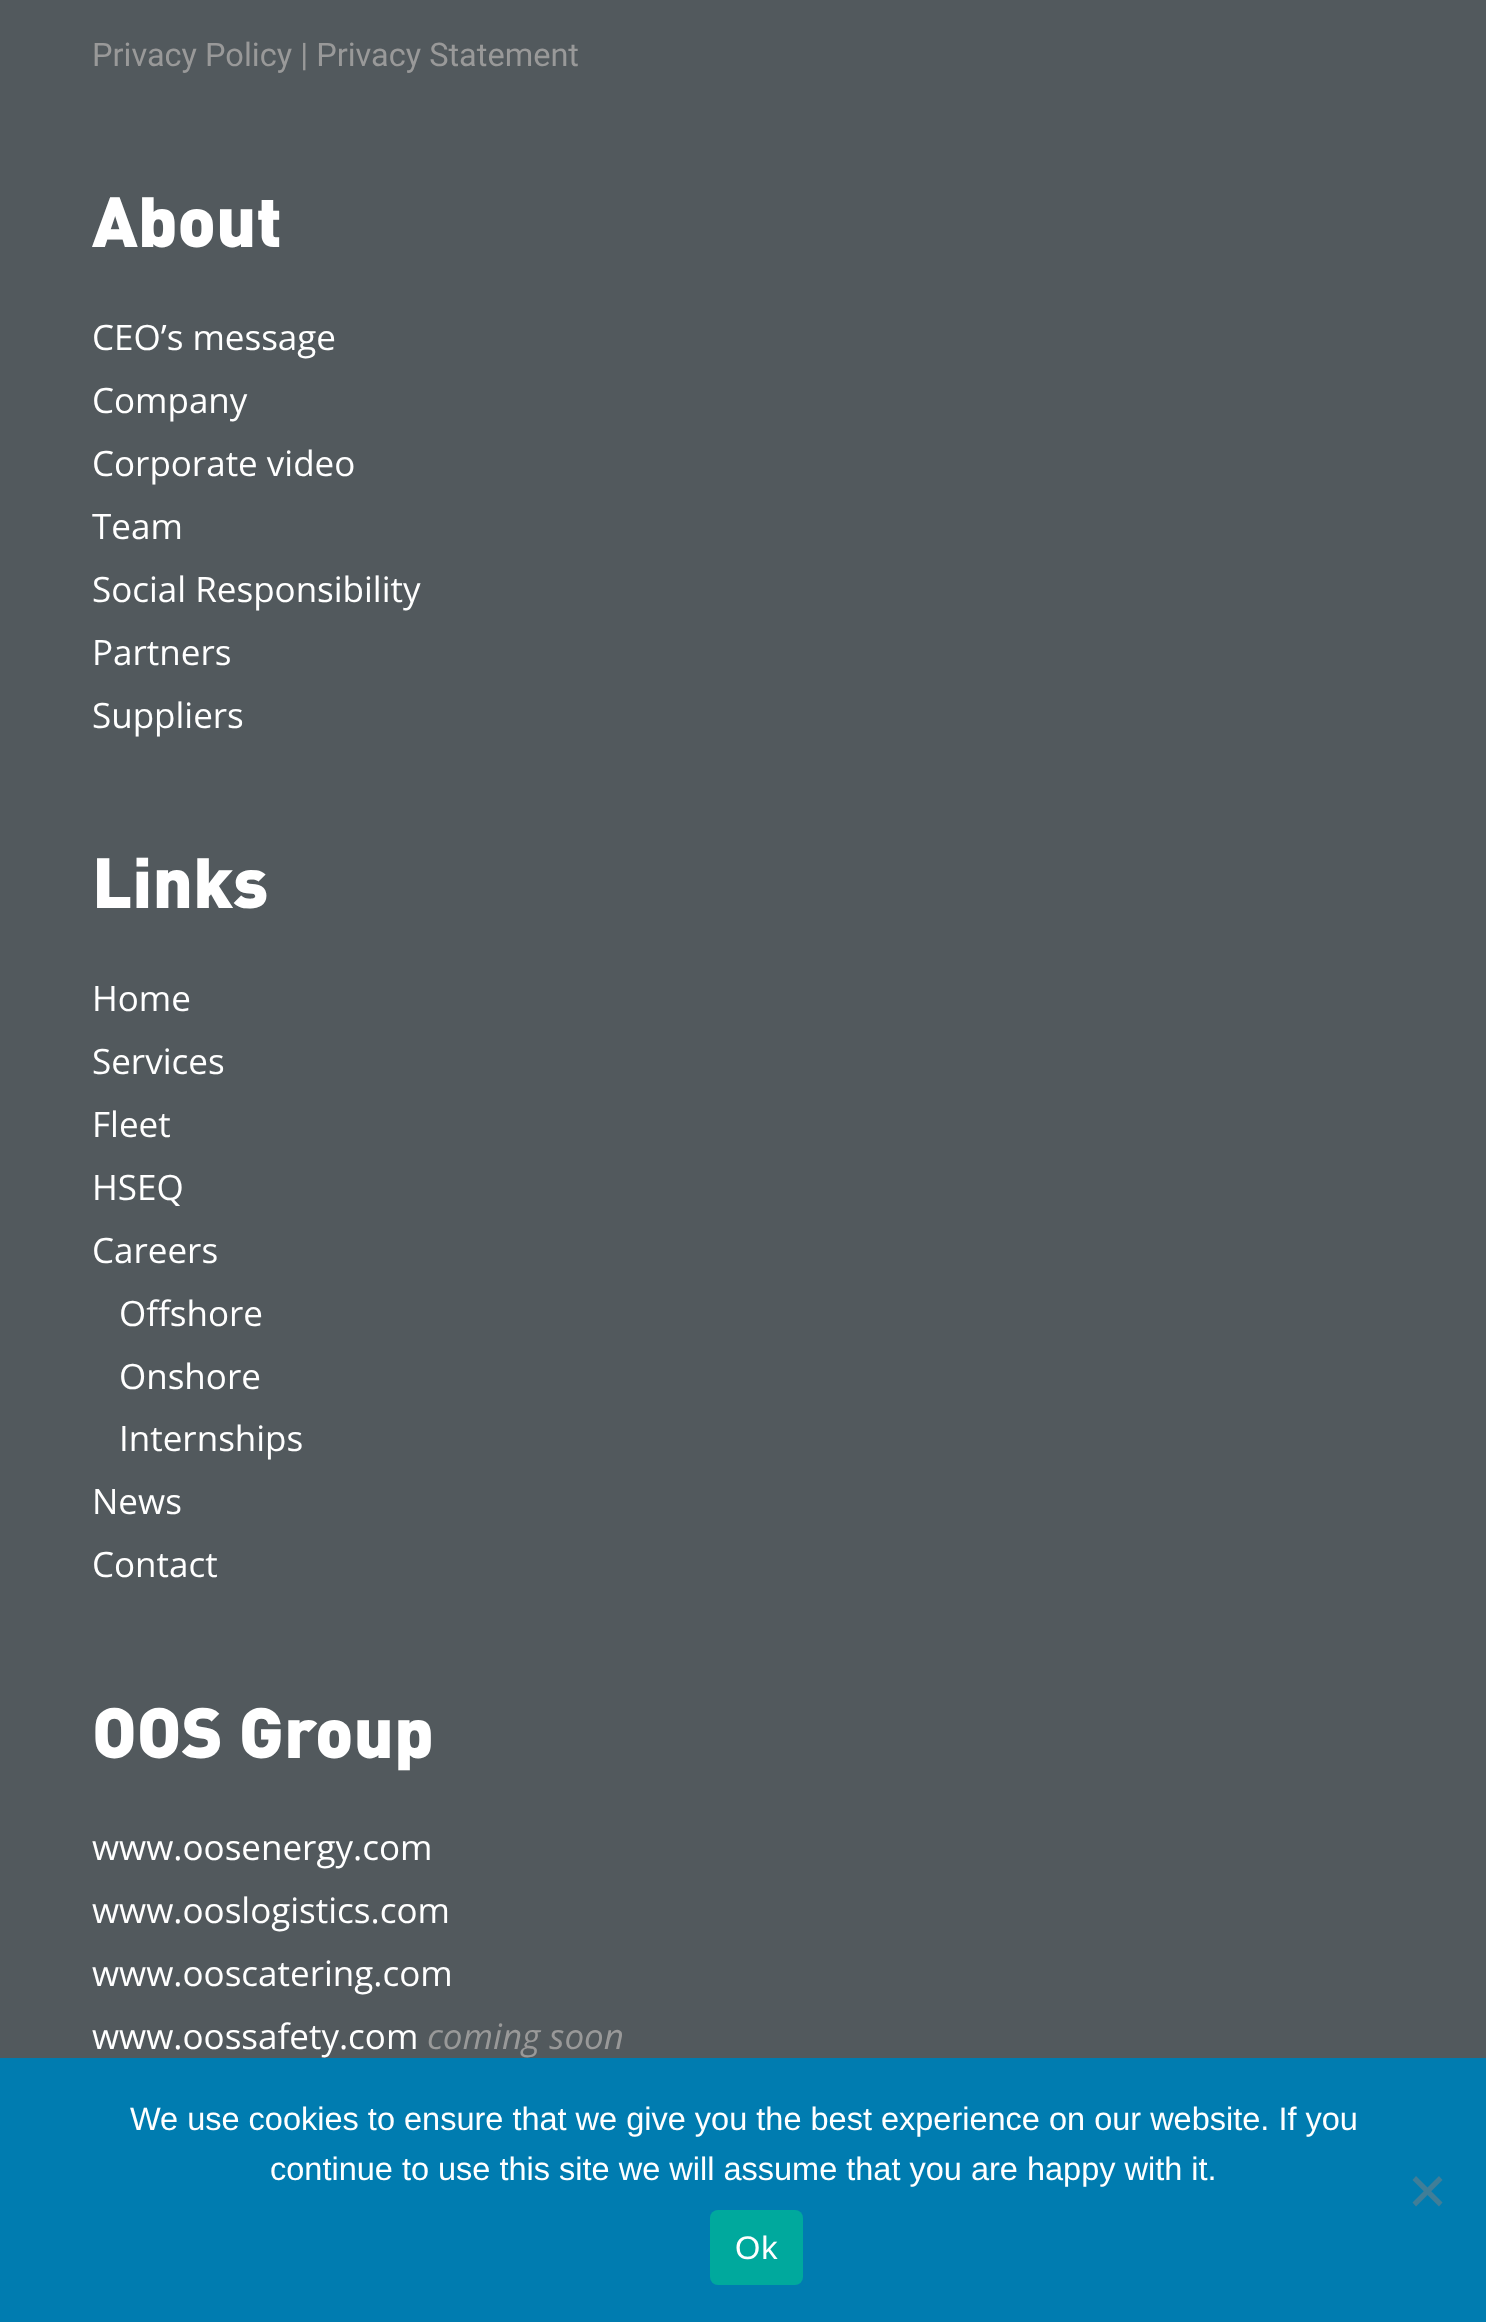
<!DOCTYPE html>
<meta charset="utf-8">
<style>body { margin: 0 } canvas { display: block }</style>
<canvas id="canvas" width="1486" height="2322"></canvas>
<script>
window.onload = function () {
    const canvas = document.getElementById('canvas');
    const context = canvas.getContext('2d');
    context.miterLimit = 4;
    context.fontKerning = 'normal';

    context.fillStyle = 'rgb(82, 89, 93)';
    context.fillRect(0, 0, 1486, 2322);
    context.fillStyle = 'rgb(0, 124, 176)';
    context.fillRect(0, 2058, 1486, 264);
    context.fillStyle = 'rgb(64, 126, 152)';
    context.beginPath();
    context.moveTo(1439, 2176);
    context.lineTo(1442.5, 2180);
    context.lineTo(1416, 2206.5);
    context.lineTo(1412.5, 2202.5);
    context.closePath();
    context.fill();
    context.beginPath();
    context.moveTo(1412.5, 2180);
    context.lineTo(1416, 2176);
    context.lineTo(1442.5, 2202.5);
    context.lineTo(1439, 2206.5);
    context.closePath();
    context.fill();
    context.fillStyle = 'rgb(0, 169, 157)';
    context.beginPath();
    context.roundRect(710, 2210, 93, 75, 8);
    context.fill();
    context.font = '32.5px Roboto';
    context.fillStyle = 'rgb(153, 153, 153)';
    context.fillText('Privacy Policy | Privacy Statement', 92, 66);
    context.font = '900 70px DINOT';
    context.fillStyle = 'rgb(255, 255, 255)';
    context.fillText('About', 92, 247);
    context.font = '35px Open Sans';
    context.fillText('CEO’s message', 92, 350);
    context.fillText('Company', 92, 413);
    context.fillText('Corporate video', 92, 476);
    context.fillText('Team', 92, 539);
    context.fillText('Social Responsibility', 92, 602);
    context.fillText('Partners', 92, 665);
    context.fillText('Suppliers', 92, 728);
    context.font = '900 70px DINOT';
    context.fillText('Links', 92, 908);
    context.font = '35px Open Sans';
    context.fillText('Home', 92, 1011);
    context.fillText('Services', 92, 1074);
    context.fillText('Fleet', 92, 1137);
    context.fillText('HSEQ', 92, 1200);
    context.fillText('Careers', 92, 1263);
    context.fillText('Offshore', 119, 1326);
    context.fillText('Onshore', 119, 1389);
    context.fillText('Internships', 119, 1451);
    context.fillText('News', 92, 1514);
    context.fillText('Contact', 92, 1577);
    context.font = '900 70px DINOT';
    context.fillText('OOS Group', 92, 1758);
    context.font = '35px Open Sans';
    context.fillText('www.oosenergy.com', 92, 1860);
    context.fillText('www.ooslogistics.com', 92, 1923);
    context.fillText('www.ooscatering.com', 92, 1986);
    context.fillText('www.oossafety.com', 92, 2049);
    context.font = 'italic 35px Open Sans';
    context.fillStyle = 'rgb(153, 153, 153)';
    context.fillText('coming soon', 427, 2049);
    context.font = '32.5px Liberation Sans';
    context.fillStyle = 'rgb(255, 255, 255)';
    context.fillText('We use cookies to ensure that we give you the best experience on our website. If you', 130, 2130);
    context.fillText('continue to use this site we will assume that you are happy with it.', 270, 2180);
    context.letterSpacing = '1px';
    context.fillText('Ok', 735, 2259);
};
</script>
